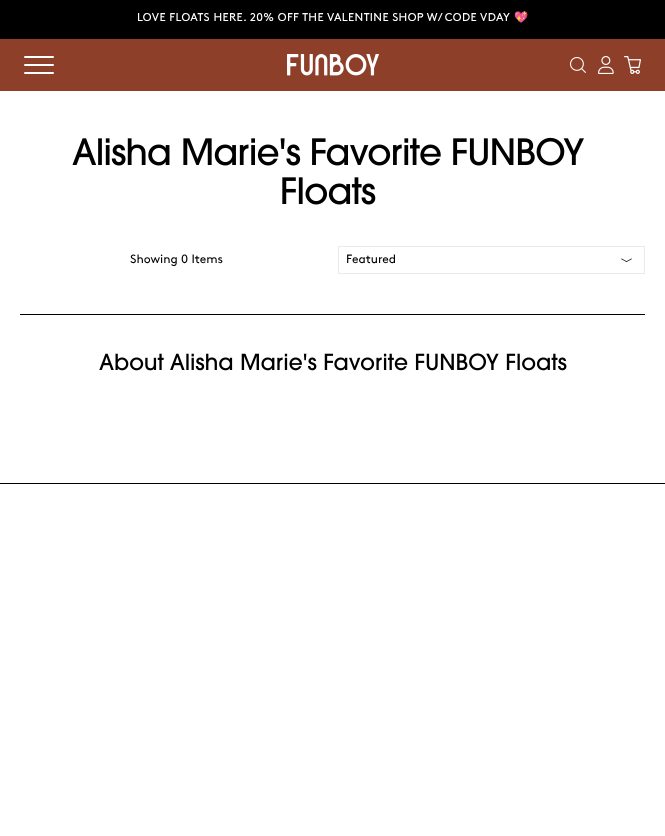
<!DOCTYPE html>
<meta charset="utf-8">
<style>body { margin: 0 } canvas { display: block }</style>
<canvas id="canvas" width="665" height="836"></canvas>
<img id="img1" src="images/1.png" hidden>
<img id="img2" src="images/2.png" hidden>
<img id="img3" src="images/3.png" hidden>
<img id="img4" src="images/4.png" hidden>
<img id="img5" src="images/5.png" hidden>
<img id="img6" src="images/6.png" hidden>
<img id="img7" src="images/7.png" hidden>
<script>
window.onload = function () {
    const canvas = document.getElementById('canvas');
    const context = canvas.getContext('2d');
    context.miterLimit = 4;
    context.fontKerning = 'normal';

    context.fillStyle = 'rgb(255, 255, 255)';
    context.fillRect(0, 0, 665, 836);
    context.fillStyle = 'rgb(141, 63, 41)';
    context.fillRect(0, 39, 665, 52);
    context.fillStyle = 'rgb(0, 0, 0)';
    context.fillRect(0, 0, 665, 39);
    context.fillStyle = 'rgb(255, 255, 255)';
    context.beginPath();
    context.roundRect(24, 56, 30, 2, 1);
    context.fill();
    context.beginPath();
    context.roundRect(24, 64, 30, 2, 1);
    context.fill();
    context.beginPath();
    context.roundRect(24, 72, 30, 2, 1);
    context.fill();
    context.drawImage(document.getElementById('img1'), 287, 54, 92, 22);
    context.drawImage(document.getElementById('img2'), 570, 57, 16, 16);
    context.drawImage(document.getElementById('img3'), 598, 56, 16, 18);
    context.drawImage(document.getElementById('img4'), 624, 56, 17, 18);
    context.fillStyle = 'rgb(0, 0, 0)';
    context.fillRect(0, 483, 665, 1);
    context.drawImage(document.getElementById('img5'), 72, 137, 512, 29);
    context.drawImage(document.getElementById('img6'), 282, 177, 94, 28);
    context.strokeStyle = 'rgb(234, 234, 234)';
    context.strokeRect(338.5, 246.5, 306, 27);
    context.beginPath();
    context.moveTo(621.5, 258.5);
    context.lineTo(627, 261.5);
    context.lineTo(626.5, 262);
    context.lineTo(621, 259);
    context.closePath();
    context.fill();
    context.beginPath();
    context.moveTo(626, 261.5);
    context.lineTo(631.5, 258.5);
    context.lineTo(632, 259);
    context.lineTo(626.5, 262);
    context.closePath();
    context.fill();
    context.fillRect(20, 314, 625, 1);
    context.drawImage(document.getElementById('img7'), 99, 353, 468, 18);
    context.letterSpacing = '0.4px';
    context.font = '11.3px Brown';
    context.fillStyle = 'rgb(255, 255, 255)';
    context.fillText('LOVE FLOATS HERE. 20% OFF THE VALENTINE SHOP W/ CODE VDAY', 137, 21);
    context.font = '11.3px Noto Color Emoji';
    context.fillText('💖', 514, 21);
    context.letterSpacing = '0px';
    context.font = '12px Brown';
    context.fillStyle = 'rgb(0, 0, 0)';
    context.fillText('Showing 0 Items', 130, 263);
    context.fillText('Featured', 346, 263);
};
</script>
